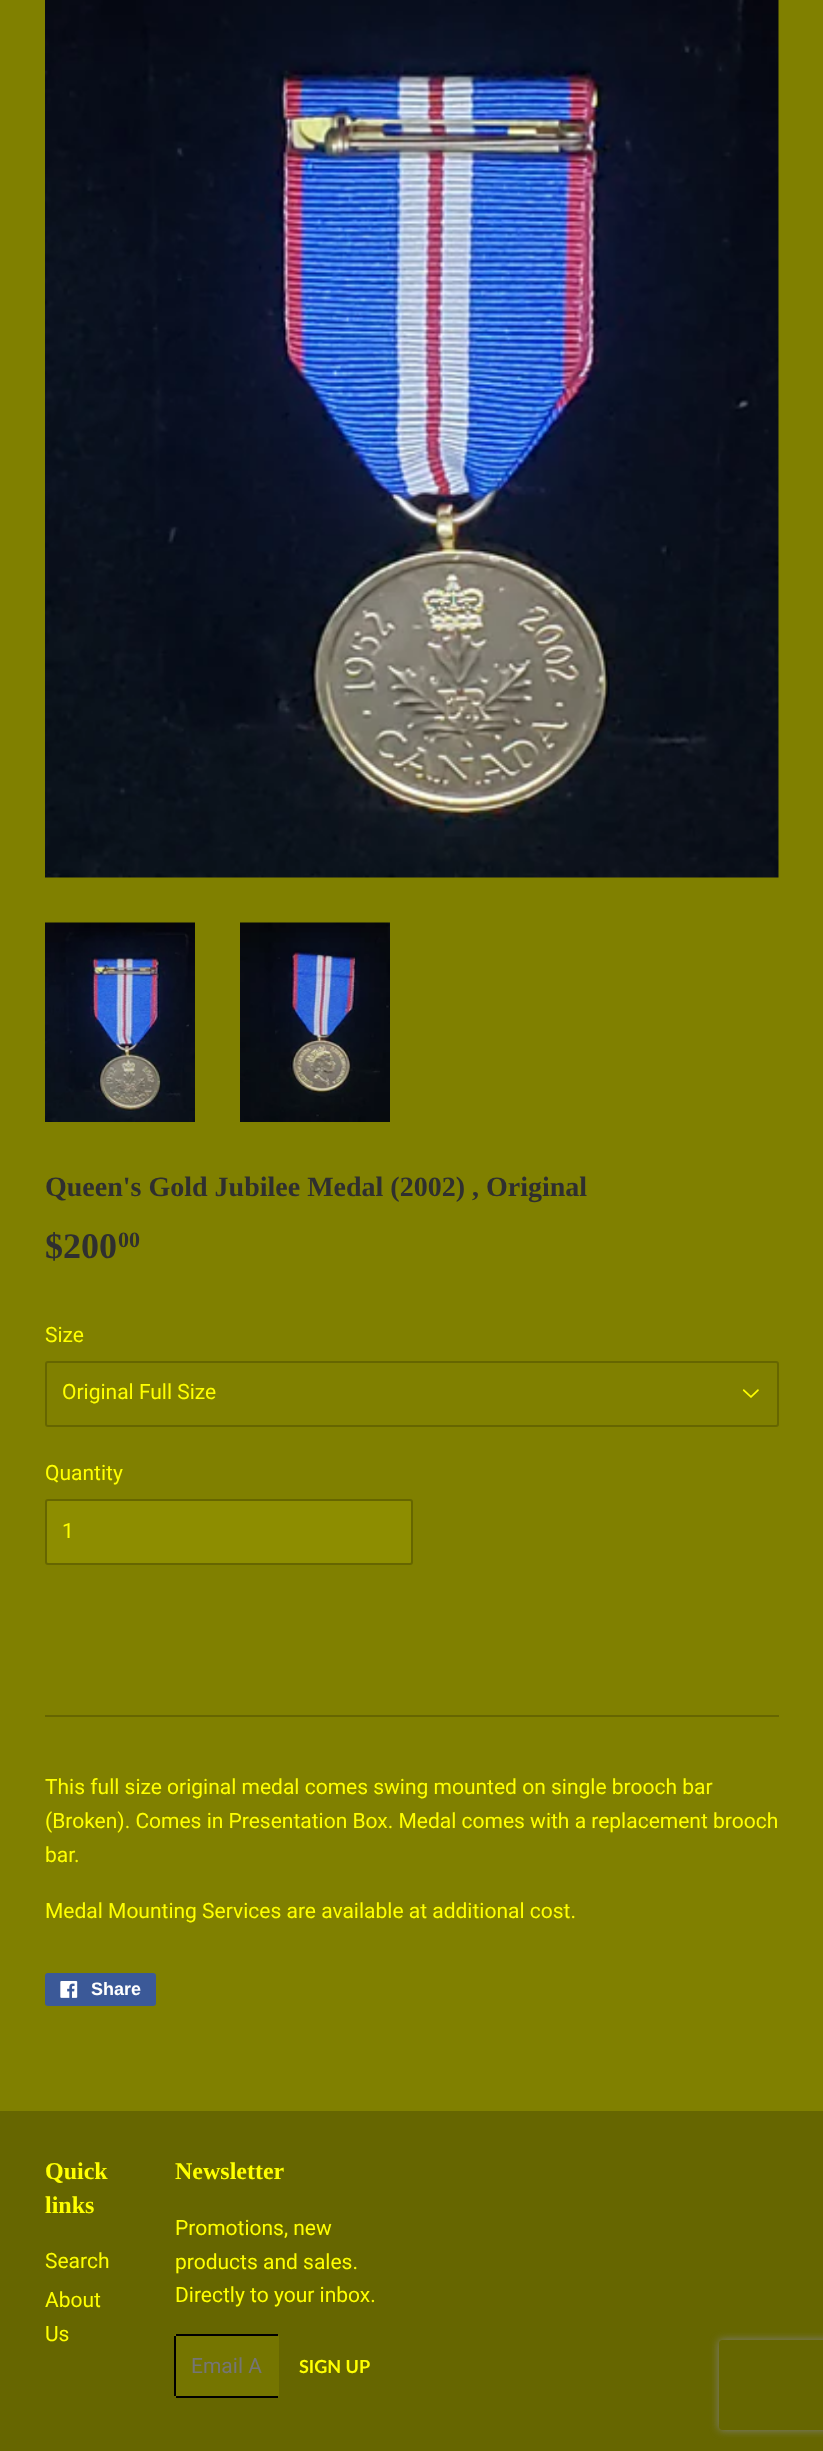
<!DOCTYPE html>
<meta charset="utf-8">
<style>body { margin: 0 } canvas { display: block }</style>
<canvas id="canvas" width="823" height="2451"></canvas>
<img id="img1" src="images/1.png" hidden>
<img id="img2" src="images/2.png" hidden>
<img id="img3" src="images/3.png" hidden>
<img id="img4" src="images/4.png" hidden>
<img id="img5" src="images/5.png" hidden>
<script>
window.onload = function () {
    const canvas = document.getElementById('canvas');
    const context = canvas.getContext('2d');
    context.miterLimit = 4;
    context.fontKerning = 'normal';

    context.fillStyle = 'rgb(128, 128, 0)';
    context.fillRect(0, 0, 823, 2451);
    context.drawImage(document.getElementById('img1'), 45, 0, 734, 878);
    context.drawImage(document.getElementById('img2'), 45, 922, 150, 200);
    context.drawImage(document.getElementById('img3'), 240, 922, 150, 200);
    context.drawImage(document.getElementById('img4'), 742, 1389, 17, 9);
    context.beginPath();
    context.roundRect(46, 1362, 732, 64, 2);
    context.strokeStyle = 'rgb(102, 102, 0)';
    context.lineWidth = 2;
    context.stroke();
    context.fillStyle = 'rgb(141, 141, 0)';
    context.beginPath();
    context.roundRect(46, 1500, 366, 64, 2);
    context.fill();
    context.stroke();
    context.fillStyle = 'rgb(102, 102, 0)';
    context.fillRect(45, 1715, 734, 2);
    context.fillStyle = 'rgb(59, 89, 152)';
    context.beginPath();
    context.roundRect(45, 1973, 111, 33, 3);
    context.fill();
    context.drawImage(document.getElementById('img5'), 60, 1981, 18, 17);
    context.fillStyle = 'rgb(102, 102, 0)';
    context.fillRect(0, 2111, 823, 340);
    context.fillStyle = 'rgb(117, 117, 0)';
    context.beginPath();
    context.roundRect(174, 2334, 105, 63, 3);
    context.fill();
    context.fillStyle = 'rgb(0, 0, 0)';
    context.fillRect(176, 2334, 102, 2);
    context.fillRect(176, 2396, 102, 2);
    context.fillRect(174, 2336, 2, 60);
    context.save();
    context.beginPath();
    context.moveTo(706, 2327);
    context.lineTo(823, 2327);
    context.lineTo(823, 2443);
    context.lineTo(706, 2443);
    context.closePath();
    context.moveTo(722, 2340);
    context.lineTo(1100, 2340);
    context.bezierCurveTo(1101.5, 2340, 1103, 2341.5, 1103, 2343);
    context.lineTo(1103, 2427);
    context.bezierCurveTo(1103, 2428.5, 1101.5, 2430, 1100, 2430);
    context.lineTo(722, 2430);
    context.bezierCurveTo(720.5, 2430, 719, 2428.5, 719, 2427);
    context.lineTo(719, 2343);
    context.bezierCurveTo(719, 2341.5, 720.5, 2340, 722, 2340);
    context.closePath();
    context.clip('evenodd');
    context.fillStyle = 'rgb(128, 128, 128)';
    context.filter = 'blur(4px)';
    context.beginPath();
    context.roundRect(719, 2340, 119, 90, 3);
    context.fill();
    context.filter = 'none';
    context.restore();
    context.font = 'bold 28px Liberation Serif';
    context.fillStyle = 'rgb(47, 47, 47)';
    context.fillText('Queen\'s Gold Jubilee Medal (2002) , Original', 45, 1196);
    context.font = 'bold 36px Liberation Serif';
    context.fillText('$200', 45, 1258);
    context.font = 'bold 22px Liberation Serif';
    context.fillText('00', 118, 1247);
    context.font = '21px Roboto';
    context.fillStyle = 'rgb(255, 255, 0)';
    context.fillText('Size', 45, 1342);
    context.fillText('Original Full Size', 62, 1399);
    context.fillText('Quantity', 45, 1480);
    context.fillText('1', 62, 1538);
    context.fillText('This full size original medal comes swing mounted on single brooch bar', 45, 1794);
    context.fillText('(Broken). Comes in Presentation Box. Medal comes with a replacement brooch', 45, 1828);
    context.fillText('bar.', 45, 1862);
    context.fillText('Medal Mounting Services are available at additional cost.', 45, 1918);
    context.font = 'bold 18px Liberation Sans';
    context.fillStyle = 'rgb(255, 255, 255)';
    context.fillText('Share', 91, 1995);
    context.font = 'bold 24px Liberation Serif';
    context.fillStyle = 'rgb(255, 255, 0)';
    context.fillText('Quick', 45, 2179);
    context.fillText('links', 45, 2213);
    context.font = '21px Roboto';
    context.fillText('Search', 45, 2268);
    context.fillText('About', 45, 2307);
    context.fillText('Us', 45, 2341);
    context.font = 'bold 24px Liberation Serif';
    context.fillText('Newsletter', 175, 2179);
    context.font = '21px Roboto';
    context.fillText('Promotions, new', 175, 2235);
    context.fillText('products and sales.', 175, 2269);
    context.fillText('Directly to your inbox.', 175, 2302);
    context.fillStyle = 'rgb(117, 117, 117)';
    context.fillText('Email A', 191, 2373);
    context.font = 'bold 18px Lato';
    context.fillStyle = 'rgb(255, 255, 0)';
    context.fillText('SIGN UP', 299, 2373);
};
</script>
